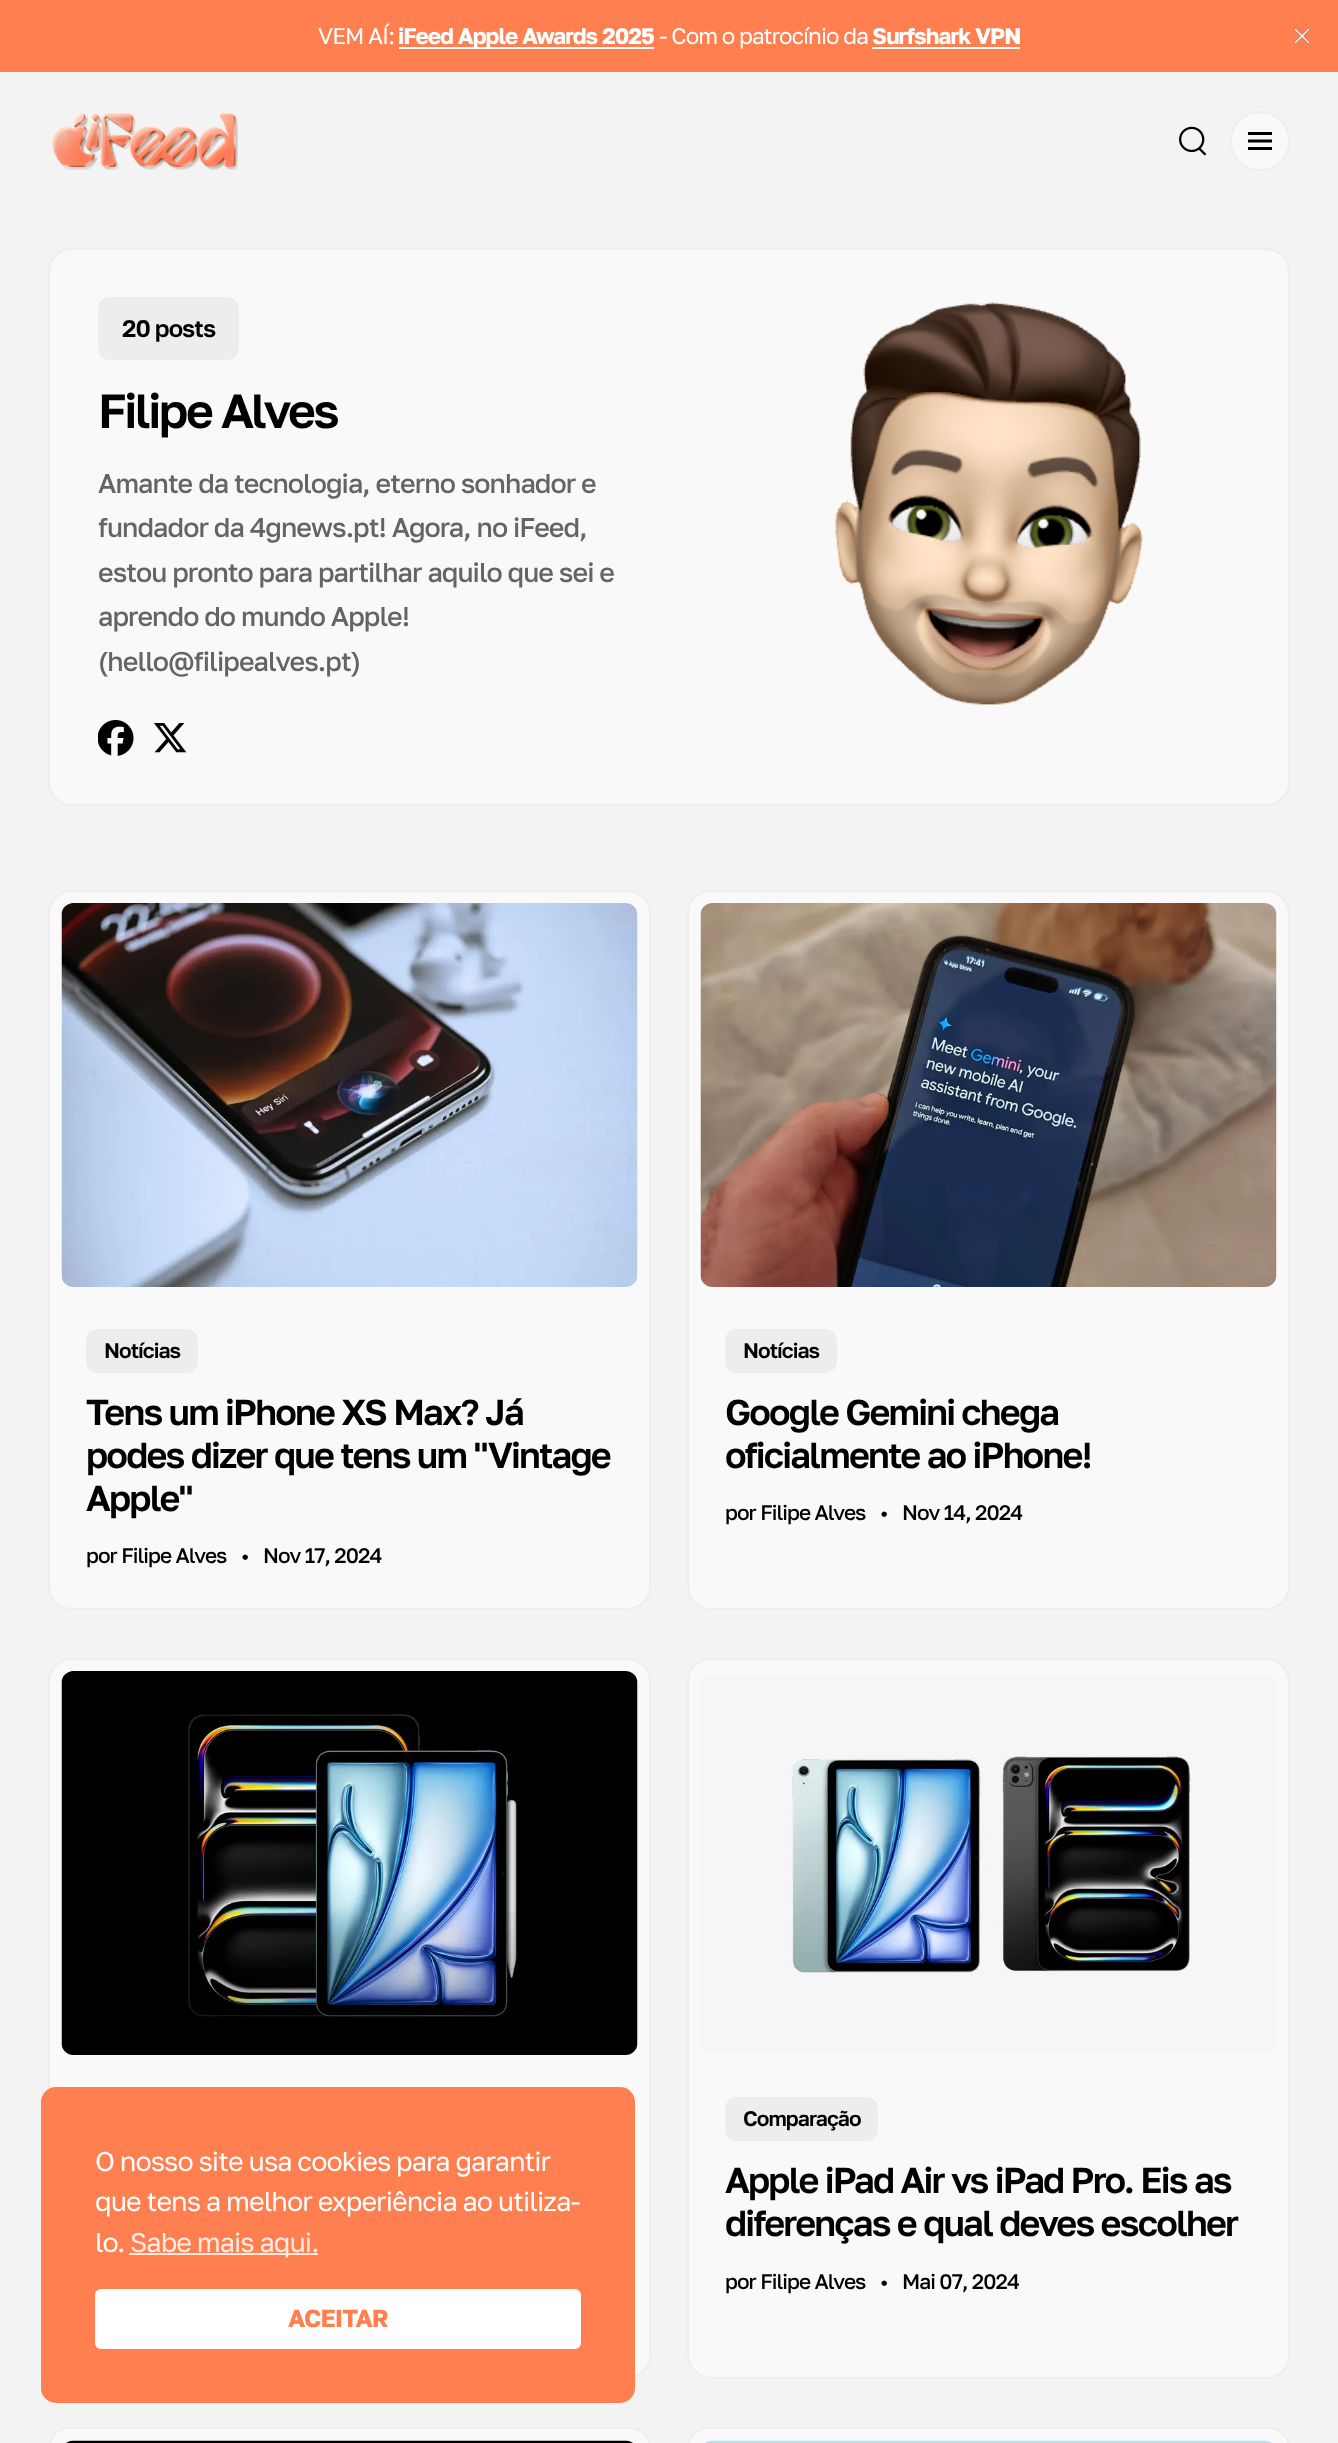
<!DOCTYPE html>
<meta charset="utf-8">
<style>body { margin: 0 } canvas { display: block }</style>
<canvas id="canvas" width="1338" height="2443"></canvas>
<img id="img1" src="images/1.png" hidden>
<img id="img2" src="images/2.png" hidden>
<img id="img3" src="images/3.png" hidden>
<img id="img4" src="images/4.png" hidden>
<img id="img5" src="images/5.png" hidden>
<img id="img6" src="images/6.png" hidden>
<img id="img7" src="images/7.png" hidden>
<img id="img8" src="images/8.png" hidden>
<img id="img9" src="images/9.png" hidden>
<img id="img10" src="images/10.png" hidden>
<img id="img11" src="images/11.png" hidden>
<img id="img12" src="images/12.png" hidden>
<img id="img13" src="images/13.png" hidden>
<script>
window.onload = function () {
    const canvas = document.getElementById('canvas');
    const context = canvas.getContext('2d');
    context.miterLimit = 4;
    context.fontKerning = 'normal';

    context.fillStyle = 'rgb(243, 243, 243)';
    context.fillRect(0, 0, 1338, 2443);
    context.fillStyle = 'rgb(255, 127, 80)';
    context.fillRect(0, 0, 1338, 72);
    context.fillStyle = 'rgb(255, 255, 255)';
    context.fillRect(399, 47, 255, 2);
    context.fillRect(872, 47, 148, 2);
    context.drawImage(document.getElementById('img1'), 1294, 28, 16, 16);
    context.drawImage(document.getElementById('img2'), 52, 113, 186, 57);
    context.drawImage(document.getElementById('img3'), 1179, 126, 27, 30);
    context.fillStyle = 'rgb(249, 249, 249)';
    context.beginPath();
    context.arc(1260, 141, 29, 0, 2 * Math.PI);
    context.fill();
    context.strokeStyle = 'rgb(238, 238, 238)';
    context.lineWidth = 2;
    context.stroke();
    context.drawImage(document.getElementById('img4'), 1248, 132, 24, 18);
    context.beginPath();
    context.roundRect(49, 249, 1240, 556, 23);
    context.fill();
    context.stroke();
    context.fillStyle = 'rgb(237, 237, 237)';
    context.beginPath();
    context.roundRect(98, 297, 141, 63, 12);
    context.fill();
    context.drawImage(document.getElementById('img5'), 98, 720, 36, 36);
    context.drawImage(document.getElementById('img6'), 154, 723, 33, 30);
    context.drawImage(document.getElementById('img7'), 835, 302, 308, 403);
    context.fillStyle = 'rgb(249, 249, 249)';
    context.beginPath();
    context.roundRect(49, 891, 601, 718, 23);
    context.fill();
    context.stroke();
    context.drawImage(document.getElementById('img8'), 61, 903, 577, 384);
    context.fillStyle = 'rgb(237, 237, 237)';
    context.beginPath();
    context.roundRect(86, 1329, 112, 44, 12);
    context.fill();
    context.fillStyle = 'rgb(249, 249, 249)';
    context.beginPath();
    context.roundRect(688, 891, 601, 718, 23);
    context.fill();
    context.stroke();
    context.drawImage(document.getElementById('img9'), 700, 903, 577, 384);
    context.fillStyle = 'rgb(237, 237, 237)';
    context.beginPath();
    context.roundRect(725, 1329, 112, 44, 12);
    context.fill();
    context.fillStyle = 'rgb(249, 249, 249)';
    context.beginPath();
    context.roundRect(49, 1659, 601, 719, 23);
    context.fill();
    context.stroke();
    context.drawImage(document.getElementById('img10'), 61, 1671, 577, 384);
    context.beginPath();
    context.roundRect(688, 1659, 601, 719, 23);
    context.fill();
    context.stroke();
    context.drawImage(document.getElementById('img11'), 701, 1674, 573, 380);
    context.fillStyle = 'rgb(237, 237, 237)';
    context.beginPath();
    context.roundRect(725, 2097, 153, 44, 12);
    context.fill();
    context.fillStyle = 'rgb(249, 249, 249)';
    context.beginPath();
    context.roundRect(49, 2428, 601, 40, 23);
    context.fill();
    context.stroke();
    context.drawImage(document.getElementById('img12'), 66, 2440, 567, 3);
    context.beginPath();
    context.roundRect(688, 2428, 601, 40, 23);
    context.fill();
    context.stroke();
    context.drawImage(document.getElementById('img13'), 705, 2440, 567, 3);
    context.fillStyle = 'rgb(255, 127, 80)';
    context.beginPath();
    context.roundRect(41, 2087, 594, 316, 15);
    context.fill();
    context.fillStyle = 'rgb(255, 236, 229)';
    context.fillRect(129, 2253, 189, 2);
    context.fillStyle = 'rgb(255, 255, 255)';
    context.beginPath();
    context.roundRect(95, 2289, 486, 60, 6);
    context.fill();
    context.letterSpacing = '-0.95px';
    context.font = '22.5px Golos Text';
    context.fillText('VEM AÍ:', 318, 44);
    context.font = 'bold 22.5px Golos Text';
    context.fillText('iFeed Apple Awards 2025', 398, 44);
    context.font = '22.5px Golos Text';
    context.fillText('- Com o patrocínio da', 659, 44);
    context.font = 'bold 22.5px Golos Text';
    context.fillText('Surfshark VPN', 872, 44);
    context.font = '600 24px Golos Text';
    context.fillStyle = 'rgb(0, 0, 0)';
    context.fillText('20 posts', 122, 337);
    context.letterSpacing = '-2.4px';
    context.font = '600 48px Golos Text';
    context.fillText('Filipe Alves', 98, 428);
    context.letterSpacing = '-0.95px';
    context.font = '500 27px Golos Text';
    context.fillStyle = 'rgb(100, 100, 100)';
    context.fillText('Amante da tecnologia, eterno sonhador e', 98, 493);
    context.fillText('fundador da 4gnews.pt! Agora, no iFeed,', 98, 537);
    context.fillText('estou pronto para partilhar aquilo que sei e', 98, 582);
    context.fillText('aprendo do mundo Apple!', 98, 626);
    context.fillText('(hello@filipealves.pt)', 98, 671);
    context.font = '600 21px Golos Text';
    context.fillStyle = 'rgb(0, 0, 0)';
    context.fillText('Notícias', 104, 1358);
    context.letterSpacing = '-1.8px';
    context.font = '600 36px Golos Text';
    context.fillText('Tens um iPhone XS Max? Já', 86, 1425);
    context.fillText('podes dizer que tens um "Vintage', 86, 1468);
    context.fillText('Apple"', 86, 1511);
    context.letterSpacing = '-0.95px';
    context.font = '500 21px Golos Text';
    context.fillText('por Filipe Alves', 86, 1563);
    context.fillText('•', 241, 1563);
    context.fillText('Nov 17, 2024', 263, 1563);
    context.font = '600 21px Golos Text';
    context.fillText('Notícias', 743, 1358);
    context.letterSpacing = '-1.8px';
    context.font = '600 36px Golos Text';
    context.fillText('Google Gemini chega', 725, 1425);
    context.fillText('oficialmente ao iPhone!', 725, 1468);
    context.letterSpacing = '-0.95px';
    context.font = '500 21px Golos Text';
    context.fillText('por Filipe Alves', 725, 1520);
    context.fillText('•', 880, 1520);
    context.fillText('Nov 14, 2024', 902, 1520);
    context.font = '600 21px Golos Text';
    context.fillText('Comparação', 743, 2126);
    context.letterSpacing = '-1.8px';
    context.font = '600 36px Golos Text';
    context.fillText('Apple iPad Air vs iPad Pro. Eis as', 725, 2193);
    context.fillText('diferenças e qual deves escolher', 725, 2236);
    context.letterSpacing = '-0.95px';
    context.font = '500 21px Golos Text';
    context.fillText('por Filipe Alves', 725, 2289);
    context.fillText('•', 880, 2289);
    context.fillText('Mai 07, 2024', 902, 2289);
    context.font = '27px Golos Text';
    context.fillStyle = 'rgb(255, 255, 255)';
    context.fillText('O nosso site usa cookies para garantir', 95, 2171);
    context.fillText('que tens a melhor experiência ao utiliza-', 95, 2211);
    context.fillText('lo.', 95, 2252);
    context.fillStyle = 'rgb(255, 236, 229)';
    context.fillText('Sabe mais aqui.', 130, 2252);
    context.font = 'bold 24.5px Golos Text';
    context.fillStyle = 'rgb(255, 127, 80)';
    context.fillText('ACEITAR', 288, 2327);
};
</script>
